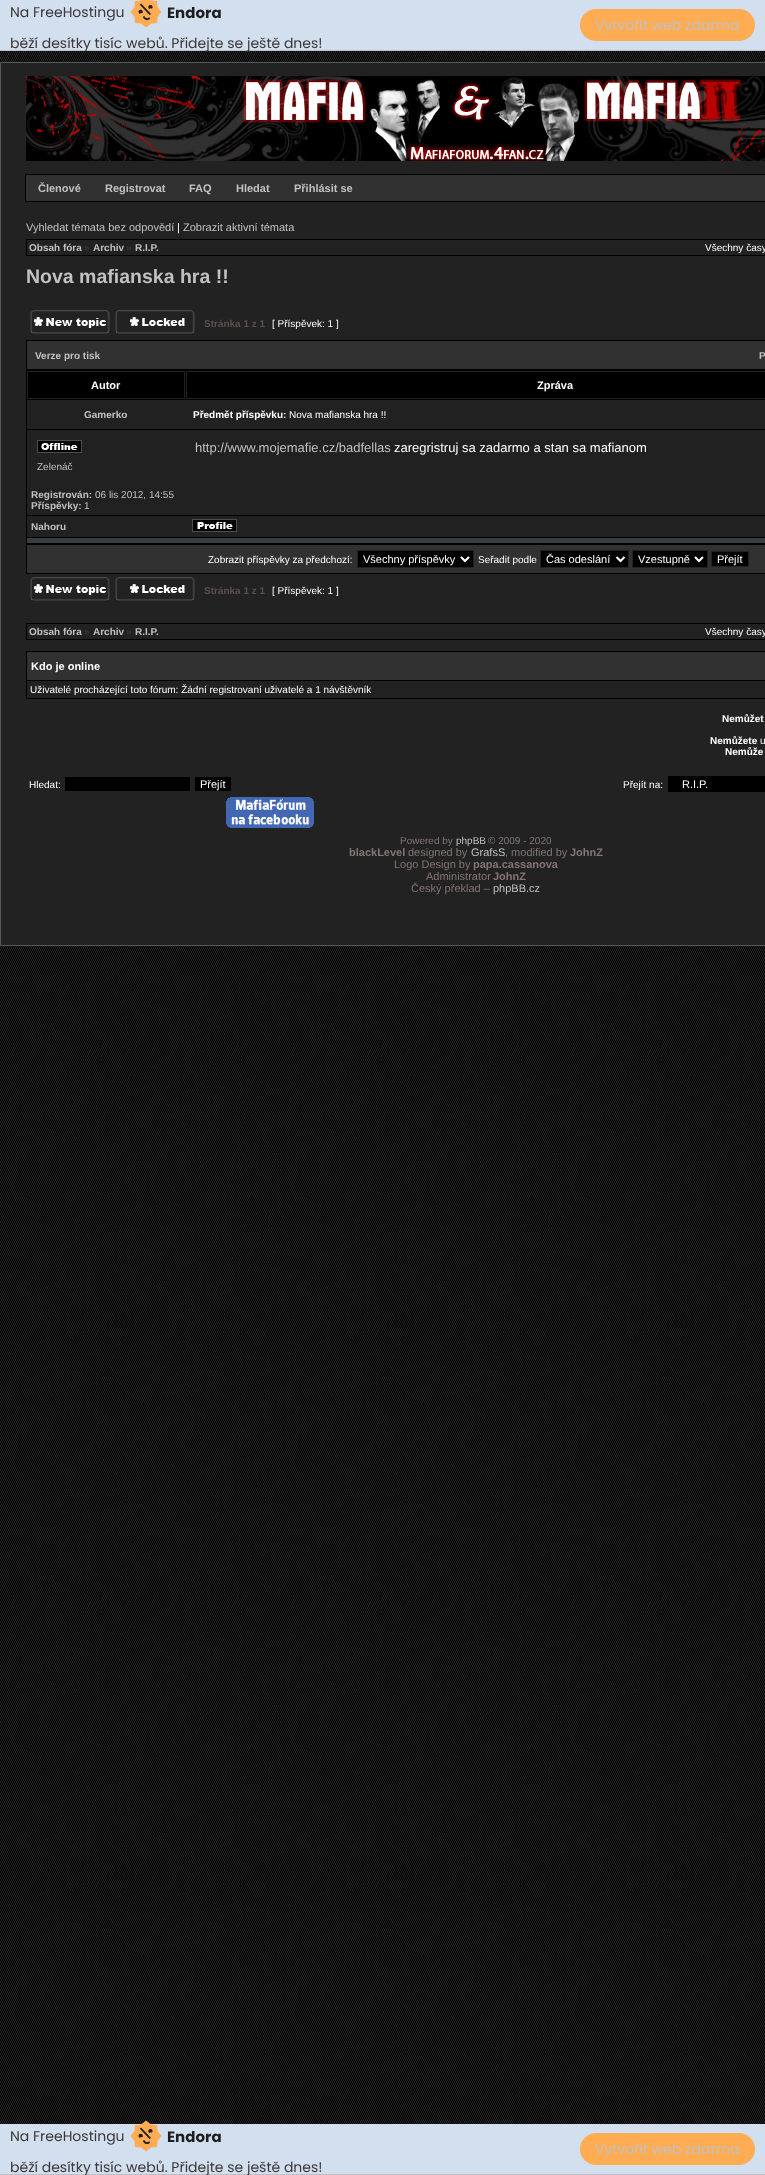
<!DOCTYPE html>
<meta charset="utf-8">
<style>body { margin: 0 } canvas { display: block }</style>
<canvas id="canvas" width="765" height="2175"></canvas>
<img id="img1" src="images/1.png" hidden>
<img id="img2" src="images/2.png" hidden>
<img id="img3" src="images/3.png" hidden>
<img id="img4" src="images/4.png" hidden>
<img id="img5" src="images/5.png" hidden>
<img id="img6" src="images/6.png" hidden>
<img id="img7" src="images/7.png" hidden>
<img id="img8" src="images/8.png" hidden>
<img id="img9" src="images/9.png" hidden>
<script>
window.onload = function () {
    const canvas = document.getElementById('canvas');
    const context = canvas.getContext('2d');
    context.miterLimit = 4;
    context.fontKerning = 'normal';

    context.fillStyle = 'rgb(255, 255, 255)';
    context.fillRect(0, 0, 765, 2175);
    context.drawImage(document.getElementById('img1'), 0, 51, 765, 2073);
    context.fillStyle = 'rgb(210, 223, 239)';
    context.fillRect(0, 0, 765, 50);
    context.fillStyle = 'rgb(190, 191, 196)';
    context.fillRect(0, 50, 765, 1);
    context.drawImage(document.getElementById('img2'), 130, 0, 32, 28);
    context.fillStyle = 'rgb(255, 172, 82)';
    context.beginPath();
    context.roundRect(580, 9, 175, 32, 16);
    context.fill();
    context.fillStyle = 'rgb(34, 34, 34)';
    context.beginPath();
    context.rect(0.5, 62.5, 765, 883);
    context.fill();
    context.strokeStyle = 'rgb(88, 88, 88)';
    context.stroke();
    context.drawImage(document.getElementById('img3'), 26, 76, 739, 85);
    context.strokeStyle = 'rgb(0, 0, 0)';
    context.strokeRect(25.5, 174.5, 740, 27);
    context.fillStyle = 'rgb(49, 49, 49)';
    context.fillRect(26, 175, 739, 26);
    context.fillStyle = 'rgb(0, 0, 0)';
    context.fillRect(26, 239, 739, 17);
    context.fillStyle = 'rgb(33, 33, 33)';
    context.fillRect(27, 240, 738, 15);
    context.drawImage(document.getElementById('img4'), 30, 310, 80, 24);
    context.drawImage(document.getElementById('img5'), 115, 310, 80, 24);
    context.fillStyle = 'rgb(0, 0, 0)';
    context.fillRect(26, 340, 739, 234);
    context.fillStyle = 'rgb(49, 49, 49)';
    context.fillRect(27, 341, 738, 28);
    context.strokeStyle = 'rgb(33, 33, 33)';
    context.strokeRect(27.5, 371.5, 157, 27);
    context.strokeRect(186.5, 371.5, 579, 27);
    context.fillStyle = 'rgb(33, 33, 33)';
    context.fillRect(27, 400, 738, 29);
    context.fillRect(27, 430, 738, 85);
    context.drawImage(document.getElementById('img6'), 37, 440, 45, 13);
    context.fillRect(27, 516, 738, 21);
    context.drawImage(document.getElementById('img7'), 192, 519, 45, 13);
    context.fillStyle = 'rgb(57, 61, 64)';
    context.fillRect(27, 538, 738, 5);
    context.fillStyle = 'rgb(49, 49, 49)';
    context.fillRect(27, 545, 738, 28);
    context.fillStyle = 'rgb(0, 0, 0)';
    context.beginPath();
    context.rect(357.5, 550.5, 116, 17);
    context.fill();
    context.strokeStyle = 'rgb(34, 34, 34)';
    context.stroke();
    context.beginPath();
    context.moveTo(461, 557);
    context.lineTo(465, 561);
    context.lineTo(469, 557);
    context.strokeStyle = 'rgb(255, 255, 255)';
    context.lineWidth = 2;
    context.stroke();
    context.beginPath();
    context.rect(540.5, 550.5, 88, 17);
    context.fill();
    context.strokeStyle = 'rgb(34, 34, 34)';
    context.lineWidth = 1;
    context.stroke();
    context.beginPath();
    context.moveTo(616.5, 557);
    context.lineTo(620.5, 561);
    context.lineTo(624.5, 557);
    context.strokeStyle = 'rgb(255, 255, 255)';
    context.lineWidth = 2;
    context.stroke();
    context.beginPath();
    context.rect(632.5, 550.5, 75, 17);
    context.fill();
    context.strokeStyle = 'rgb(34, 34, 34)';
    context.lineWidth = 1;
    context.stroke();
    context.beginPath();
    context.moveTo(695, 557);
    context.lineTo(699, 561);
    context.lineTo(703, 557);
    context.strokeStyle = 'rgb(255, 255, 255)';
    context.lineWidth = 2;
    context.stroke();
    context.beginPath();
    context.rect(711.5, 551.5, 37, 15);
    context.fill();
    context.strokeStyle = 'rgb(34, 34, 34)';
    context.lineWidth = 1;
    context.stroke();
    context.drawImage(document.getElementById('img4'), 30, 577, 80, 24);
    context.drawImage(document.getElementById('img5'), 115, 577, 80, 24);
    context.fillRect(26, 623, 739, 17);
    context.fillStyle = 'rgb(33, 33, 33)';
    context.fillRect(27, 624, 738, 15);
    context.fillStyle = 'rgb(0, 0, 0)';
    context.fillRect(26, 651, 739, 48);
    context.fillStyle = 'rgb(49, 49, 49)';
    context.fillRect(27, 652, 738, 28);
    context.fillStyle = 'rgb(33, 33, 33)';
    context.fillRect(27, 681, 738, 17);
    context.fillStyle = 'rgb(0, 0, 0)';
    context.fillRect(65, 777, 125, 14);
    context.fillRect(195, 777, 36, 14);
    context.fillRect(668, 776, 97, 16);
    context.drawImage(document.getElementById('img8'), 226, 797, 88, 31);
    context.fillStyle = 'rgb(210, 223, 239)';
    context.fillRect(0, 2124, 765, 50);
    context.fillStyle = 'rgb(190, 191, 196)';
    context.fillRect(0, 2174, 765, 1);
    context.drawImage(document.getElementById('img9'), 130, 2120, 32, 32);
    context.fillStyle = 'rgb(255, 172, 82)';
    context.beginPath();
    context.roundRect(580, 2133, 175, 32, 16);
    context.fill();
    context.font = '14px Poppins';
    context.fillStyle = 'rgb(61, 55, 55)';
    context.fillText('Na FreeHostingu', 10, 17);
    context.font = 'bold 15px Poppins';
    context.fillStyle = 'rgb(30, 30, 30)';
    context.fillText('Endora', 167, 18);
    context.font = '14px Poppins';
    context.fillStyle = 'rgb(61, 55, 55)';
    context.fillText('běží desítky tisíc webů. Přidejte se ještě dnes!', 10, 48);
    context.fillStyle = 'rgb(193, 193, 193)';
    context.fillText('Vytvořit web zdarma', 595, 30);
    context.font = 'bold 11px Liberation Sans';
    context.fillText('Členové', 38, 192);
    context.fillText('Registrovat', 105, 192);
    context.fillText('FAQ', 189, 192);
    context.fillText('Hledat', 236, 192);
    context.fillText('Přihlásit se', 294, 192);
    context.font = '11px Liberation Sans';
    context.fillText('Vyhledat témata bez odpovědí', 26, 231);
    context.fillStyle = 'rgb(255, 255, 255)';
    context.fillText('|', 177, 231);
    context.fillStyle = 'rgb(193, 193, 193)';
    context.fillText('Zobrazit aktivní témata', 183, 231);
    context.font = 'bold 10px Liberation Sans';
    context.fillText('Obsah fóra', 29, 251);
    context.fillStyle = 'rgb(61, 55, 55)';
    context.fillText('»', 84, 251);
    context.fillStyle = 'rgb(193, 193, 193)';
    context.fillText('Archiv', 93, 251);
    context.fillStyle = 'rgb(61, 55, 55)';
    context.fillText('»', 126, 251);
    context.fillStyle = 'rgb(193, 193, 193)';
    context.fillText('R.I.P.', 135, 251);
    context.font = '10px Liberation Sans';
    context.fillStyle = 'rgb(255, 255, 255)';
    context.fillText('Všechny časy', 705, 251);
    context.font = 'bold 19.5px Liberation Sans';
    context.fillStyle = 'rgb(193, 193, 193)';
    context.fillText('Nova mafianska hra !!', 26, 283);
    context.font = 'bold 10px Liberation Sans';
    context.fillStyle = 'rgb(95, 78, 78)';
    context.fillText('Stránka 1 z 1', 204, 327);
    context.font = '10px Liberation Sans';
    context.fillStyle = 'rgb(255, 255, 255)';
    context.fillText('[ Příspěvek: 1 ]', 272, 327);
    context.font = 'bold 10px Liberation Sans';
    context.fillStyle = 'rgb(193, 193, 193)';
    context.fillText('Verze pro tisk', 35, 359);
    context.fillText('P', 759, 359);
    context.font = 'bold 11px Liberation Sans';
    context.fillStyle = 'rgb(255, 255, 255)';
    context.fillText('Autor', 91, 389);
    context.fillText('Zpráva', 537, 389);
    context.font = 'bold 10px Liberation Sans';
    context.fillStyle = 'rgb(193, 193, 193)';
    context.fillText('Gamerko', 84, 418);
    context.fillStyle = 'rgb(255, 255, 255)';
    context.fillText('Předmět příspěvku:', 193, 418);
    context.font = '10px Liberation Sans';
    context.fillText('Nova mafianska hra !!', 289, 418);
    context.font = '13px Liberation Sans';
    context.fillStyle = 'rgb(193, 193, 193)';
    context.fillText('http://www.mojemafie.cz/badfellas', 195, 452);
    context.fillStyle = 'rgb(255, 255, 255)';
    context.fillText('zaregristruj sa zadarmo a stan sa mafianom', 394, 452);
    context.font = '10px Liberation Sans';
    context.fillStyle = 'rgb(193, 193, 193)';
    context.fillText('Zelenáč', 37, 470);
    context.font = 'bold 10px Liberation Sans';
    context.fillText('Registrován:', 31, 498);
    context.font = '10px Liberation Sans';
    context.fillText('06 lis 2012, 14:55', 95, 498);
    context.font = 'bold 10px Liberation Sans';
    context.fillText('Příspěvky:', 31, 509);
    context.font = '10px Liberation Sans';
    context.fillText('1', 84, 509);
    context.font = 'bold 10px Liberation Sans';
    context.fillText('Nahoru', 31, 530);
    context.font = '10px Liberation Sans';
    context.fillStyle = 'rgb(255, 255, 255)';
    context.fillText('Zobrazit příspěvky za předchozí:', 208, 563);
    context.font = '11px Liberation Sans';
    context.fillText('Všechny příspěvky', 363, 563);
    context.font = '10px Liberation Sans';
    context.fillText('Seřadit podle', 478, 563);
    context.font = '11px Liberation Sans';
    context.fillText('Čas odeslání', 546, 563);
    context.fillText('Vzestupně', 638, 563);
    context.fillText('Přejít', 717, 563);
    context.font = 'bold 10px Liberation Sans';
    context.fillStyle = 'rgb(95, 78, 78)';
    context.fillText('Stránka 1 z 1', 204, 594);
    context.font = '10px Liberation Sans';
    context.fillStyle = 'rgb(255, 255, 255)';
    context.fillText('[ Příspěvek: 1 ]', 272, 594);
    context.font = 'bold 10px Liberation Sans';
    context.fillStyle = 'rgb(193, 193, 193)';
    context.fillText('Obsah fóra', 29, 635);
    context.fillStyle = 'rgb(61, 55, 55)';
    context.fillText('»', 84, 635);
    context.fillStyle = 'rgb(193, 193, 193)';
    context.fillText('Archiv', 93, 635);
    context.fillStyle = 'rgb(61, 55, 55)';
    context.fillText('»', 126, 635);
    context.fillStyle = 'rgb(193, 193, 193)';
    context.fillText('R.I.P.', 135, 635);
    context.font = '10px Liberation Sans';
    context.fillStyle = 'rgb(255, 255, 255)';
    context.fillText('Všechny časy', 705, 635);
    context.font = 'bold 11px Liberation Sans';
    context.fillText('Kdo je online', 31, 670);
    context.font = '10px Liberation Sans';
    context.fillText('Uživatelé procházející toto fórum: Žádní registrovaní uživatelé a 1 návštěvník', 30, 693);
    context.font = 'bold 10px Liberation Sans';
    context.fillText('Nemůžet', 722, 722);
    context.fillText('Nemůžete', 710, 744);
    context.font = '10px Liberation Sans';
    context.fillText('u', 760, 744);
    context.font = 'bold 10px Liberation Sans';
    context.fillText('Nemůže', 725, 755);
    context.font = '10px Liberation Sans';
    context.fillText('Hledat:', 29, 788);
    context.font = '11px Liberation Sans';
    context.fillText('Přejít', 200, 788);
    context.font = '10px Liberation Sans';
    context.fillText('Přejít na:', 623, 788);
    context.font = '11px Liberation Sans';
    context.fillText('R.I.P.', 682, 788);
    context.font = '10px Liberation Sans';
    context.fillStyle = 'rgb(132, 116, 116)';
    context.fillText('Powered by', 400, 844);
    context.fillStyle = 'rgb(193, 193, 193)';
    context.fillText('phpBB', 456, 844);
    context.fillStyle = 'rgb(132, 116, 116)';
    context.fillText('© 2009 - 2020', 488, 844);
    context.font = 'bold 11px Liberation Sans';
    context.fillText('blackLevel', 349, 856);
    context.font = '11px Liberation Sans';
    context.fillText('designed by', 408, 856);
    context.fillStyle = 'rgb(193, 193, 193)';
    context.fillText('GrafsS', 471, 856);
    context.fillStyle = 'rgb(132, 116, 116)';
    context.fillText(', modified by', 505, 856);
    context.font = 'bold 11px Liberation Sans';
    context.fillText('JohnZ', 570, 856);
    context.font = '11px Liberation Sans';
    context.fillText('Logo Design by', 394, 868);
    context.font = 'bold 11px Liberation Sans';
    context.fillText('papa.cassanova', 473, 868);
    context.font = '11px Liberation Sans';
    context.fillText('Administrator', 426, 880);
    context.font = 'bold 11px Liberation Sans';
    context.fillText('JohnZ', 493, 880);
    context.font = '11px Liberation Sans';
    context.fillText('Český překlad –', 411, 892);
    context.fillStyle = 'rgb(193, 193, 193)';
    context.fillText('phpBB.cz', 493, 892);
    context.font = '14px Poppins';
    context.fillStyle = 'rgb(61, 55, 55)';
    context.fillText('Na FreeHostingu', 10, 2141);
    context.font = 'bold 15px Poppins';
    context.fillStyle = 'rgb(30, 30, 30)';
    context.fillText('Endora', 167, 2142);
    context.font = '14px Poppins';
    context.fillStyle = 'rgb(61, 55, 55)';
    context.fillText('běží desítky tisíc webů. Přidejte se ještě dnes!', 10, 2172);
    context.fillStyle = 'rgb(193, 193, 193)';
    context.fillText('Vytvořit web zdarma', 595, 2154);
};
</script>
